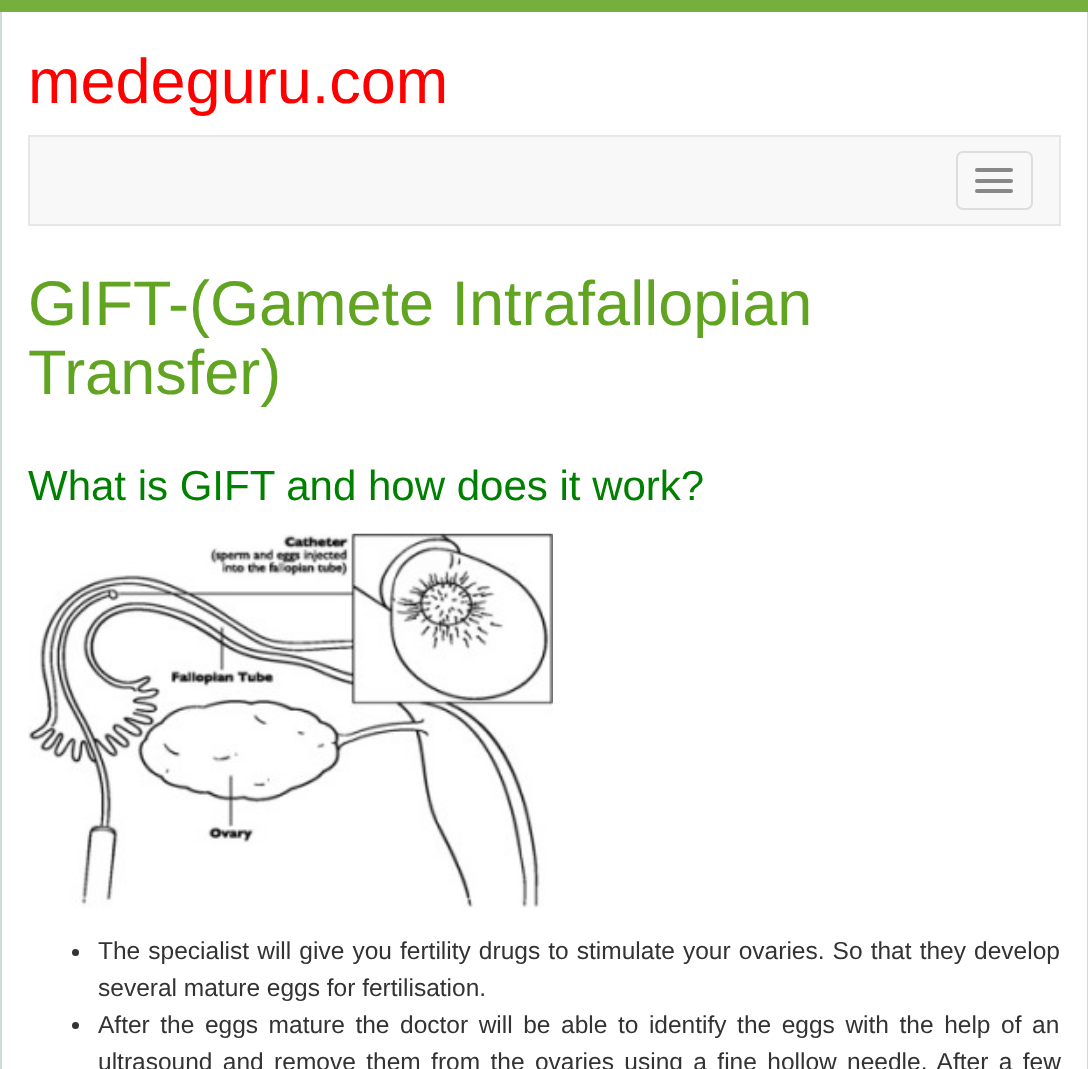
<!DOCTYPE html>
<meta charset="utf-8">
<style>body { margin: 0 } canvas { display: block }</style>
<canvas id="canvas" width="1088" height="1069"></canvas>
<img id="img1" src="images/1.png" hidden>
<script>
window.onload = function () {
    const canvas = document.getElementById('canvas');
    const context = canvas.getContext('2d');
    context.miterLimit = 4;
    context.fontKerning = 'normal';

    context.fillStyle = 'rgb(117, 175, 62)';
    context.fillRect(0, 0, 1088, 1069);
    context.fillStyle = 'rgb(255, 255, 255)';
    context.fillRect(2, 12, 1085, 1057);
    context.fillStyle = 'rgb(208, 218, 219)';
    context.fillRect(1087, 12, 1, 1057);
    context.fillRect(0, 12, 2, 1057);
    context.fillStyle = 'rgb(248, 248, 248)';
    context.beginPath();
    context.rect(29, 136, 1031, 89);
    context.fill();
    context.strokeStyle = 'rgb(231, 231, 231)';
    context.lineWidth = 2;
    context.stroke();
    context.beginPath();
    context.roundRect(957, 152, 75, 57, 6);
    context.strokeStyle = 'rgb(221, 221, 221)';
    context.stroke();
    context.fillStyle = 'rgb(136, 136, 136)';
    context.beginPath();
    context.roundRect(975, 168, 38, 4, 2);
    context.fill();
    context.beginPath();
    context.roundRect(975, 179, 38, 4, 2);
    context.fill();
    context.beginPath();
    context.roundRect(975, 189, 38, 4, 2);
    context.fill();
    context.drawImage(document.getElementById('img1'), 28, 533, 525, 375);
    context.fillStyle = 'rgb(51, 51, 51)';
    context.beginPath();
    context.arc(75.5, 952.5, 3.5, 0, 2 * Math.PI);
    context.fill();
    context.beginPath();
    context.arc(75.5, 1025.5, 3.5, 0, 2 * Math.PI);
    context.fill();
    context.font = '63px Liberation Sans';
    context.fillStyle = 'rgb(255, 0, 0)';
    context.fillText('medeguru.com', 28, 103);
    context.fillStyle = 'rgb(96, 164, 34)';
    context.fillText('GIFT-(Gamete Intrafallopian', 28, 325);
    context.fillText('Transfer)', 28, 394);
    context.font = '42px Liberation Sans';
    context.fillStyle = 'rgb(0, 128, 0)';
    context.fillText('What is GIFT and how does it work?', 28, 500);
    context.wordSpacing = '1.3px';
    context.font = '24.5px Liberation Sans';
    context.fillStyle = 'rgb(51, 51, 51)';
    context.fillText('The specialist will give you fertility drugs to stimulate your ovaries. So that they develop', 98, 959);
    context.wordSpacing = '0px';
    context.fillText('several mature eggs for fertilisation.', 98, 996);
    context.wordSpacing = '3.75px';
    context.fillText('After the eggs mature the doctor will be able to identify the eggs with the help of an', 98, 1033);
    context.wordSpacing = '3.6px';
    context.fillText('ultrasound and remove them from the ovaries using a fine hollow needle. After a few', 98, 1070);
};
</script>
